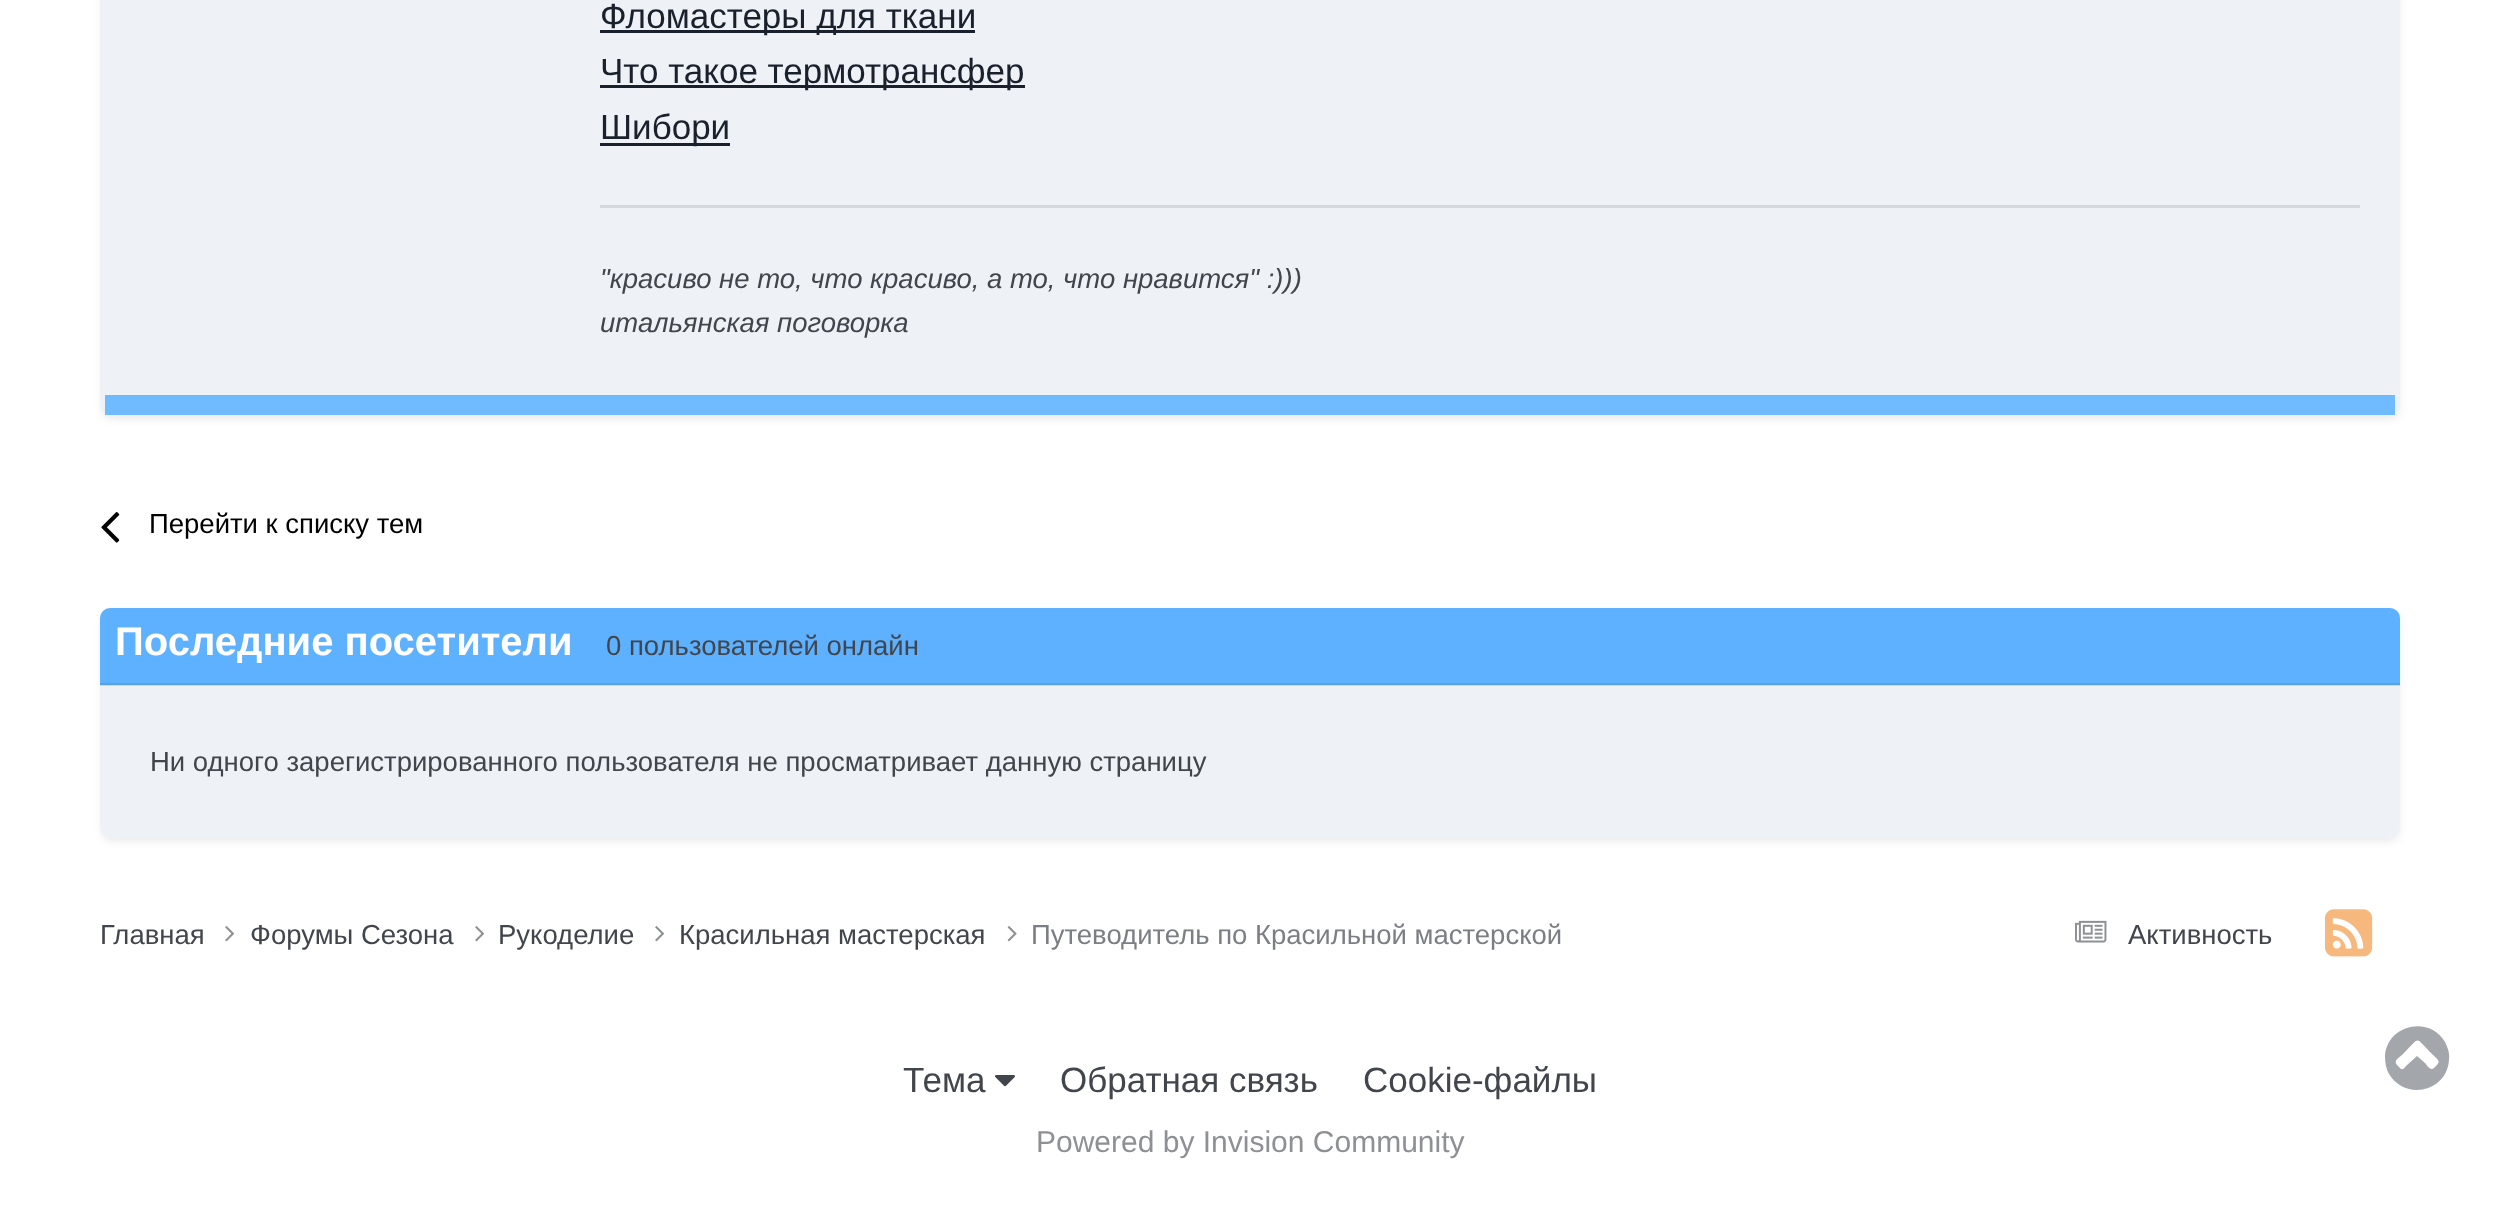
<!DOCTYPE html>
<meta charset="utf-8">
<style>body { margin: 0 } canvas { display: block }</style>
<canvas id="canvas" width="2498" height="1214"></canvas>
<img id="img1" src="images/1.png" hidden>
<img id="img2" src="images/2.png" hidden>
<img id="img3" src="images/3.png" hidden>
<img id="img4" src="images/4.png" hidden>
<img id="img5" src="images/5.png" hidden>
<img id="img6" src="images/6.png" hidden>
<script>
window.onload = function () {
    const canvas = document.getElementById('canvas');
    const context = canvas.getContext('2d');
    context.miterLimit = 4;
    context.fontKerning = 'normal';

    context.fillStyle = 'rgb(255, 255, 255)';
    context.fillRect(0, 0, 2498, 1214);
    context.fillStyle = 'rgba(0, 0, 0, 0.1)';
    context.filter = 'blur(5px)';
    context.beginPath();
    context.roundRect(103, -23, 2295, 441, 8);
    context.fill();
    context.filter = 'none';
    context.fillStyle = 'rgb(238, 242, 247)';
    context.beginPath();
    context.roundRect(100, -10, 2300, 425, 10);
    context.fill();
    context.fillStyle = 'rgb(112, 186, 255)';
    context.fillRect(105, 395, 2290, 20);
    context.fillStyle = 'rgb(26, 32, 44)';
    context.fillRect(600, 30, 375, 3);
    context.fillRect(600, 85, 425, 3);
    context.fillRect(600, 143, 130, 3);
    context.fillStyle = 'rgb(212, 216, 221)';
    context.fillRect(600, 205, 1760, 3);
    context.drawImage(document.getElementById('img1'), 101, 512, 19, 31);
    context.fillStyle = 'rgba(0, 0, 0, 0.1)';
    context.filter = 'blur(5px)';
    context.beginPath();
    context.roundRect(103, 615, 2295, 225, 8);
    context.fill();
    context.filter = 'none';
    context.fillStyle = 'rgb(238, 242, 247)';
    context.beginPath();
    context.roundRect(100, 608, 2300, 230, 10);
    context.fill();
    context.fillStyle = 'rgb(212, 216, 221)';
    context.fillRect(100, 685, 2300, 1);
    context.fillStyle = 'rgb(94, 177, 255)';
    context.beginPath();
    context.roundRect(100, 608, 2300, 77, [10, 10, 0, 0]);
    context.fill();
    context.fillStyle = 'rgb(90, 161, 228)';
    context.fillRect(100, 683, 2300, 2);
    context.drawImage(document.getElementById('img2'), 225, 926, 10, 16);
    context.drawImage(document.getElementById('img2'), 475, 926, 10, 16);
    context.drawImage(document.getElementById('img2'), 655, 926, 10, 16);
    context.drawImage(document.getElementById('img3'), 1007, 926, 10, 16);
    context.drawImage(document.getElementById('img4'), 2075, 920, 32, 23);
    context.drawImage(document.getElementById('img5'), 2325, 909, 48, 48);
    context.fillStyle = 'rgb(163, 166, 171)';
    context.beginPath();
    context.moveTo(2434, 1068);
    context.bezierCurveTo(2441, 1061, 2440, 1062, 2432, 1054);
    context.bezierCurveTo(2414, 1036, 2421, 1036, 2403, 1054);
    context.bezierCurveTo(2399, 1058, 2393, 1060, 2397, 1065);
    context.bezierCurveTo(2402, 1070, 2402, 1071, 2406, 1066);
    context.lineTo(2417, 1056);
    context.lineTo(2426, 1064);
    context.bezierCurveTo(2427, 1066, 2431, 1071, 2434, 1068);
    context.closePath();
    context.moveTo(2445, 1042);
    context.bezierCurveTo(2448, 1048, 2450, 1054, 2449, 1060);
    context.bezierCurveTo(2447, 1092, 2405, 1101, 2389, 1074);
    context.bezierCurveTo(2386, 1069, 2385, 1062, 2385, 1056);
    context.bezierCurveTo(2387, 1025, 2429, 1015, 2445, 1042);
    context.closePath();
    context.fill();
    context.drawImage(document.getElementById('img6'), 995, 1075, 20, 12);
    context.font = '35px Liberation Sans';
    context.fillStyle = 'rgb(26, 32, 44)';
    context.fillText('Фломастеры для ткани', 600, 28);
    context.fillText('Что такое термотрансфер', 600, 83);
    context.fillText('Шибори', 600, 139);
    context.font = 'italic 27.5px Liberation Sans';
    context.fillStyle = 'rgb(66, 70, 76)';
    context.fillText('"красиво не то, что красиво, а то, что нравится" :)))', 600, 288);
    context.fillText('итальянская поговорка', 600, 332);
    context.font = '27.5px Liberation Sans';
    context.fillStyle = 'rgb(0, 0, 0)';
    context.fillText('Перейти к списку тем', 149, 533);
    context.font = 'bold 40px Liberation Sans';
    context.fillStyle = 'rgb(255, 255, 255)';
    context.fillText('Последние посетители', 115, 655);
    context.font = '27.5px Liberation Sans';
    context.fillStyle = 'rgb(66, 70, 76)';
    context.fillText('0 пользователей онлайн', 606, 655);
    context.fillText('Ни одного зарегистрированного пользователя не просматривает данную страницу', 150, 771);
    context.fillText('Главная', 100, 944);
    context.fillText('Форумы Сезона', 250, 944);
    context.fillText('Рукоделие', 498, 944);
    context.fillText('Красильная мастерская', 679, 944);
    context.fillStyle = 'rgb(123, 126, 130)';
    context.fillText('Путеводитель по Красильной мастерской', 1031, 944);
    context.fillStyle = 'rgb(66, 70, 76)';
    context.fillText('Активность', 2128, 944);
    context.font = '35px Liberation Sans';
    context.fillText('Тема', 903, 1092);
    context.fillText('Обратная связь', 1060, 1092);
    context.fillText('Cookie-файлы', 1363, 1092);
    context.font = '30px Liberation Sans';
    context.fillStyle = 'rgb(142, 144, 148)';
    context.fillText('Powered by Invision Community', 1036, 1152);
};
</script>
